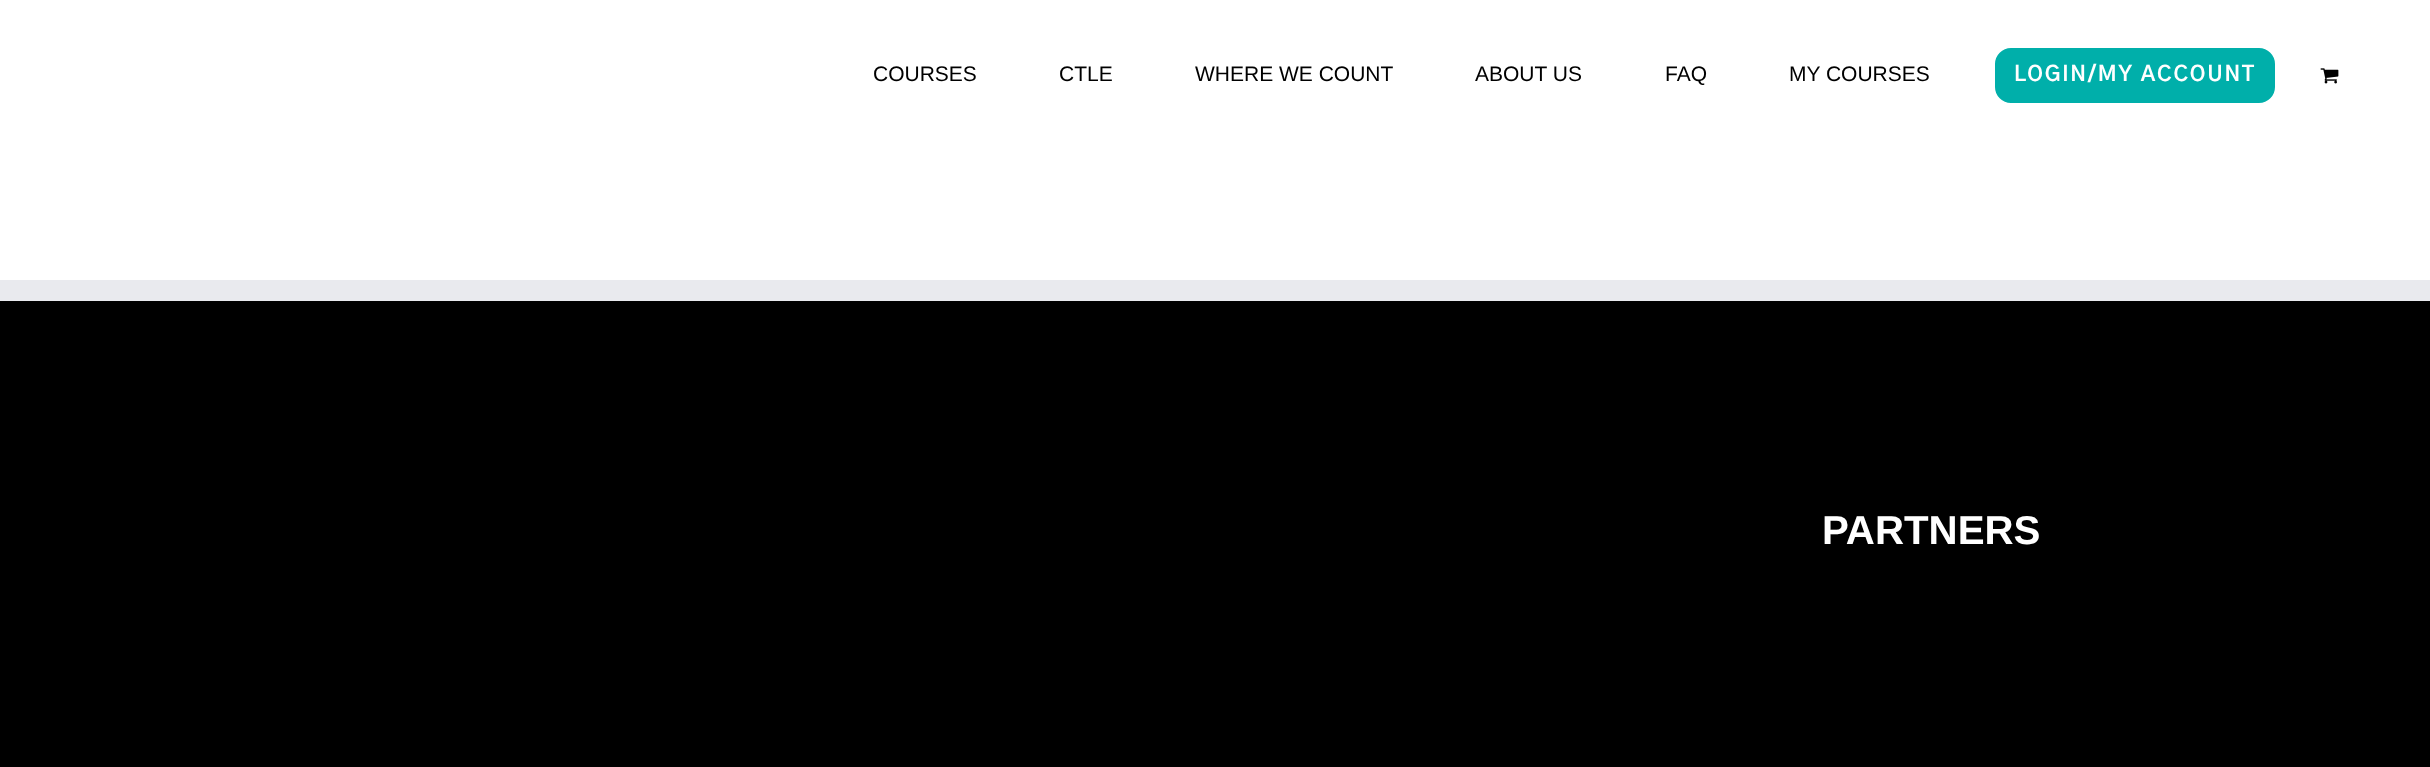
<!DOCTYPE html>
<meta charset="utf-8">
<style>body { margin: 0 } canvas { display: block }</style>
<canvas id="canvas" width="2430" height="767"></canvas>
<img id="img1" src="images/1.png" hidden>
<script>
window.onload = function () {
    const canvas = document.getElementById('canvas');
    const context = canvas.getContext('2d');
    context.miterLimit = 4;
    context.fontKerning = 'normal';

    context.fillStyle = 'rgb(255, 255, 255)';
    context.fillRect(0, 0, 2430, 767);
    context.fillStyle = 'rgb(0, 175, 170)';
    context.beginPath();
    context.roundRect(1994, 47, 282, 57, 17);
    context.fill();
    context.strokeStyle = 'rgb(255, 255, 255)';
    context.lineWidth = 2;
    context.stroke();
    context.drawImage(document.getElementById('img1'), 2320, 68, 19, 16);
    context.fillStyle = 'rgb(0, 0, 0)';
    context.fillRect(0, 301, 2430, 466);
    context.fillStyle = 'rgb(233, 234, 238)';
    context.fillRect(0, 280, 2430, 21);
    context.font = '21px Liberation Sans';
    context.fillStyle = 'rgb(0, 0, 0)';
    context.fillText('COURSES', 873, 81);
    context.fillText('CTLE', 1059, 81);
    context.fillText('WHERE WE COUNT', 1195, 81);
    context.fillText('ABOUT US', 1475, 81);
    context.fillText('FAQ', 1665, 81);
    context.fillText('MY COURSES', 1789, 81);
    context.letterSpacing = '1.75px';
    context.font = 'bold 21px "Gothic A1"';
    context.fillStyle = 'rgb(255, 255, 255)';
    context.fillText('LOGIN/MY ACCOUNT', 2014, 81);
    context.letterSpacing = '0px';
    context.font = 'bold 40.25px Liberation Sans';
    context.fillText('PARTNERS', 1822, 544);
};
</script>
